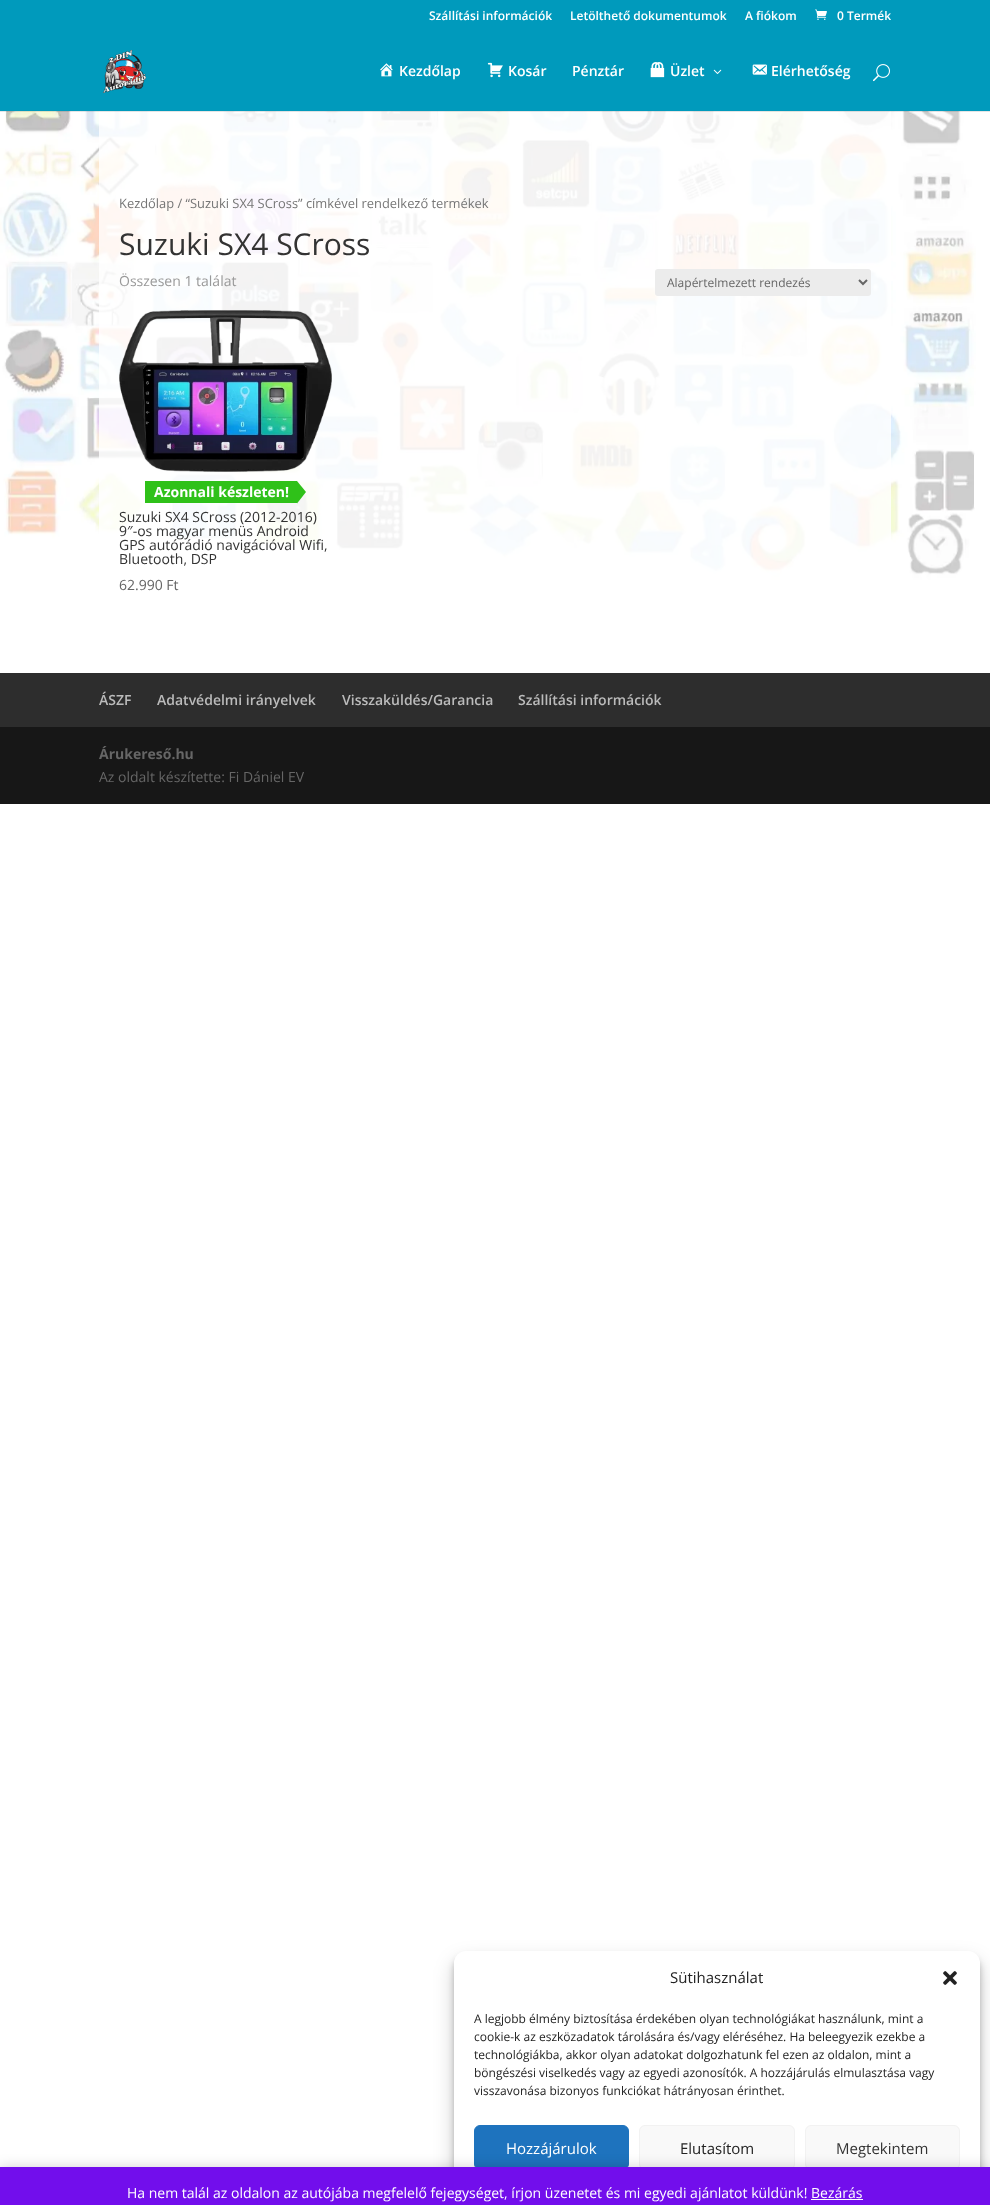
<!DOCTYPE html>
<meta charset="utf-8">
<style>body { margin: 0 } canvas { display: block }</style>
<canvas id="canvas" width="990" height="2205"></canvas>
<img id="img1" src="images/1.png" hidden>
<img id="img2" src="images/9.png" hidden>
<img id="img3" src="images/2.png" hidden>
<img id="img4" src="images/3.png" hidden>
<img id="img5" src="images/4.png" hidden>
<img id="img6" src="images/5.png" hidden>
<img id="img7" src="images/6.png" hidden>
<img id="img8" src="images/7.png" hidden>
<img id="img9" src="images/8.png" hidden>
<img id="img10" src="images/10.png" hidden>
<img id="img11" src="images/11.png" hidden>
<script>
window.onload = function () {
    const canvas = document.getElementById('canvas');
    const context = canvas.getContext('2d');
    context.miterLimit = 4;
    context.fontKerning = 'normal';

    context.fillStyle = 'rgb(255, 255, 255)';
    context.fillRect(0, 0, 990, 2205);
    context.fillStyle = 'rgb(0, 154, 188)';
    context.fillRect(0, 0, 990, 111);
    context.drawImage(document.getElementById('img1'), 815, 9, 12, 11);
    context.drawImage(document.getElementById('img2'), 0, 111, 976, 469);
    context.fillStyle = 'rgba(255, 255, 255, 0.8)';
    context.fillRect(99, 111, 792, 469);
    context.fillStyle = 'rgba(0, 0, 0, 0.1)';
    context.fillRect(0, 111, 990, 1);
    context.drawImage(document.getElementById('img3'), 103, 50, 43, 43);
    context.drawImage(document.getElementById('img4'), 380, 63, 13, 14);
    context.drawImage(document.getElementById('img5'), 487, 62, 16, 16);
    context.drawImage(document.getElementById('img6'), 650, 62, 15, 16);
    context.drawImage(document.getElementById('img7'), 713, 69, 9, 5);
    context.drawImage(document.getElementById('img8'), 752, 64, 15, 11);
    context.drawImage(document.getElementById('img9'), 873, 64, 17, 18);
    context.fillStyle = 'rgb(236, 236, 236)';
    context.beginPath();
    context.roundRect(655, 269, 216, 27, 3);
    context.fill();
    context.beginPath();
    context.moveTo(859, 280);
    context.lineTo(863, 284);
    context.lineTo(867, 280);
    context.strokeStyle = 'rgb(102, 102, 102)';
    context.lineWidth = 2;
    context.stroke();
    context.drawImage(document.getElementById('img10'), 119, 310, 213, 162);
    context.fillStyle = 'rgb(47, 193, 25)';
    context.fillRect(145, 481, 152, 22);
    context.beginPath();
    context.moveTo(297, 481);
    context.lineTo(297, 503.5);
    context.lineTo(306, 492);
    context.closePath();
    context.fill();
    context.fillStyle = 'rgb(45, 45, 45)';
    context.fillRect(0, 673, 990, 54);
    context.fillStyle = 'rgb(23, 23, 23)';
    context.fillRect(0, 727, 990, 77);
    context.fillStyle = 'rgba(0, 0, 0, 0.23)';
    context.filter = 'blur(3px)';
    context.beginPath();
    context.roundRect(454, 1957, 526, 244, 12);
    context.fill();
    context.filter = 'none';
    context.fillStyle = 'rgba(0, 0, 0, 0.19)';
    context.filter = 'blur(10px)';
    context.beginPath();
    context.roundRect(454, 1961, 526, 244, 12);
    context.fill();
    context.filter = 'none';
    context.fillStyle = 'rgb(255, 255, 255)';
    context.beginPath();
    context.roundRect(454, 1951, 526, 244, 12);
    context.fill();
    context.drawImage(document.getElementById('img11'), 943, 1971, 14, 14);
    context.fillStyle = 'rgb(30, 115, 190)';
    context.beginPath();
    context.roundRect(474.5, 2125.5, 154, 44, 5.5);
    context.fill();
    context.strokeStyle = 'rgb(30, 115, 190)';
    context.lineWidth = 1;
    context.stroke();
    context.fillStyle = 'rgb(249, 249, 249)';
    context.beginPath();
    context.roundRect(639.5, 2125.5, 155, 44, 5.5);
    context.fill();
    context.strokeStyle = 'rgb(242, 242, 242)';
    context.stroke();
    context.beginPath();
    context.roundRect(805.5, 2125.5, 154, 44, 5.5);
    context.fill();
    context.stroke();
    context.fillStyle = 'rgba(0, 0, 0, 0.2)';
    context.filter = 'blur(7px)';
    context.beginPath();
    context.rect(0, 2168, 990, 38);
    context.fill();
    context.filter = 'none';
    context.fillStyle = 'rgb(114, 14, 236)';
    context.fillRect(0, 2167, 990, 38);
    context.font = '600 12px Open Sans';
    context.fillStyle = 'rgb(255, 255, 255)';
    context.fillText('Szállítási információk', 429, 20);
    context.fillText('Letölthető dokumentumok', 570, 20);
    context.fillText('A fiókom', 745, 20);
    context.fillText('0 Termék', 837, 20);
    context.font = '600 14px Open Sans';
    context.fillText('Kezdőlap', 399, 76);
    context.fillText('Kosár', 508, 76);
    context.fillText('Pénztár', 572, 76);
    context.fillText('Üzlet', 670, 76);
    context.fillText('Elérhetőség', 771, 76);
    context.font = '12.9px Open Sans';
    context.fillStyle = 'rgb(118, 118, 118)';
    context.fillText('Kezdőlap / “Suzuki SX4 SCross” címkével rendelkező termékek', 119, 208);
    context.font = '30px Open Sans';
    context.fillStyle = 'rgb(51, 51, 51)';
    context.fillText('Suzuki SX4 SCross', 119, 255);
    context.font = '14px Open Sans';
    context.fillStyle = 'rgb(153, 153, 153)';
    context.fillText('Összesen 1 találat', 119, 286);
    context.font = '12px Open Sans';
    context.fillStyle = 'rgb(102, 102, 102)';
    context.fillText('Alapértelmezett rendezés', 667, 287);
    context.font = 'bold 14px Open Sans';
    context.fillStyle = 'rgb(255, 255, 255)';
    context.fillText('Azonnali készleten!', 154, 497);
    context.font = '14px Open Sans';
    context.fillStyle = 'rgb(51, 51, 51)';
    context.fillText('Suzuki SX4 SCross (2012-2016)', 119, 522);
    context.fillText('9″-os magyar menüs Android', 119, 536);
    context.fillText('GPS autórádió navigációval Wifi,', 119, 550);
    context.fillText('Bluetooth, DSP', 119, 564);
    context.fillStyle = 'rgb(102, 102, 102)';
    context.fillText('62.990 Ft', 119, 590);
    context.font = '600 14px Open Sans';
    context.fillStyle = 'rgb(187, 187, 187)';
    context.fillText('ÁSZF', 99, 705);
    context.fillText('Adatvédelmi irányelvek', 157, 705);
    context.fillText('Visszaküldés/Garancia', 342, 705);
    context.fillText('Szállítási információk', 518, 705);
    context.font = 'bold 14px Open Sans';
    context.fillStyle = 'rgb(102, 102, 102)';
    context.fillText('Árukereső.hu', 99, 759);
    context.font = '14px Open Sans';
    context.fillText('Az oldalt készítette: Fi Dániel EV', 99, 782);
    context.font = '15px Open Sans';
    context.fillStyle = 'rgb(34, 34, 34)';
    context.fillText('Sütihasználat', 670, 1983);
    context.font = '12px Open Sans';
    context.fillText('A legjobb élmény biztosítása érdekében olyan technológiákat használunk, mint a', 474, 2023);
    context.fillText('cookie-k az eszközadatok tárolására és/vagy eléréséhez. Ha beleegyezik ezekbe a', 474, 2041);
    context.fillText('technológiákba, akkor olyan adatokat dolgozhatunk fel ezen az oldalon, mint a', 474, 2059);
    context.fillText('böngészési viselkedés vagy az egyedi azonosítók. A hozzájárulás elmulasztása vagy', 474, 2077);
    context.fillText('visszavonása bizonyos funkciókat hátrányosan érinthet.', 474, 2095);
    context.font = '15px Open Sans';
    context.fillStyle = 'rgb(255, 255, 255)';
    context.fillText('Hozzájárulok', 506, 2154);
    context.fillStyle = 'rgb(34, 34, 34)';
    context.fillText('Elutasítom', 680, 2154);
    context.fillStyle = 'rgb(51, 51, 51)';
    context.fillText('Megtekintem', 836, 2154);
    context.font = '14px Open Sans';
    context.fillStyle = 'rgb(255, 255, 255)';
    context.fillText('Ha nem talál az oldalon az autójába megfelelő fejegységet, írjon üzenetet és mi egyedi ajánlatot küldünk! Bezárás', 127, 2198);
    context.fillStyle = 'rgb(252, 251, 254)';
    context.fillRect(811, 2199, 52, 1);
};
</script>
